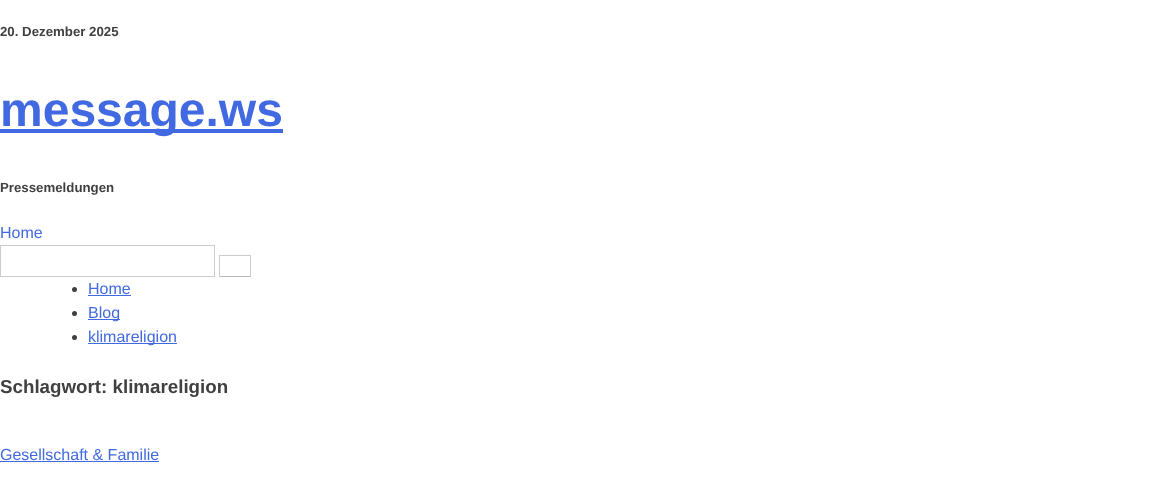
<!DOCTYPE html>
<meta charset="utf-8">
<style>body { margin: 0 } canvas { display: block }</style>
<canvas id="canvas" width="1150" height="481"></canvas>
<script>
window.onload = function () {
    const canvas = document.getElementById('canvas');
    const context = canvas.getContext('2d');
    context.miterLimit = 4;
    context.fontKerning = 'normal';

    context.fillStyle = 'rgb(255, 255, 255)';
    context.fillRect(0, 0, 1150, 481);
    context.fillStyle = 'rgb(65, 105, 225)';
    context.fillRect(0, 129, 283, 4);
    context.strokeStyle = 'rgb(204, 204, 204)';
    context.strokeRect(0.5, 245.5, 214, 31);
    context.fillStyle = 'rgb(204, 204, 204)';
    context.fillRect(219, 255, 32, 1);
    context.fillRect(250, 255, 1, 22);
    context.fillStyle = 'rgb(187, 187, 187)';
    context.fillRect(219, 276, 32, 1);
    context.fillStyle = 'rgb(204, 204, 204)';
    context.fillRect(219, 255, 1, 22);
    context.fillStyle = 'rgb(64, 64, 64)';
    context.beginPath();
    context.arc(74.5, 289.5, 2.5, 0, 2 * Math.PI);
    context.fill();
    context.fillStyle = 'rgb(65, 105, 225)';
    context.fillRect(88, 295, 43, 1);
    context.fillStyle = 'rgb(64, 64, 64)';
    context.beginPath();
    context.arc(74.5, 313.5, 2.5, 0, 2 * Math.PI);
    context.fill();
    context.fillStyle = 'rgb(65, 105, 225)';
    context.fillRect(88, 319, 32, 1);
    context.fillStyle = 'rgb(64, 64, 64)';
    context.beginPath();
    context.arc(74.5, 337.5, 2.5, 0, 2 * Math.PI);
    context.fill();
    context.fillStyle = 'rgb(65, 105, 225)';
    context.fillRect(88, 343, 89, 1);
    context.fillRect(0, 461, 159, 1);
    context.font = 'bold 13.25px Liberation Sans';
    context.fillStyle = 'rgb(64, 64, 64)';
    context.fillText('20. Dezember 2025', 0, 36);
    context.font = 'bold 48px Liberation Sans';
    context.fillStyle = 'rgb(65, 105, 225)';
    context.fillText('message.ws', 0, 126);
    context.font = 'bold 13.25px Liberation Sans';
    context.fillStyle = 'rgb(64, 64, 64)';
    context.fillText('Pressemeldungen', 0, 192);
    context.font = '16px Liberation Sans';
    context.fillStyle = 'rgb(65, 105, 225)';
    context.fillText('Home', 0, 238);
    context.fillText('Home', 88, 294);
    context.fillText('Blog', 88, 318);
    context.fillText('klimareligion', 88, 342);
    context.font = 'bold 18.75px Liberation Sans';
    context.fillStyle = 'rgb(64, 64, 64)';
    context.fillText('Schlagwort: klimareligion', 0, 393);
    context.font = '16px Liberation Sans';
    context.fillStyle = 'rgb(65, 105, 225)';
    context.fillText('Gesellschaft & Familie', 0, 460);
};
</script>
